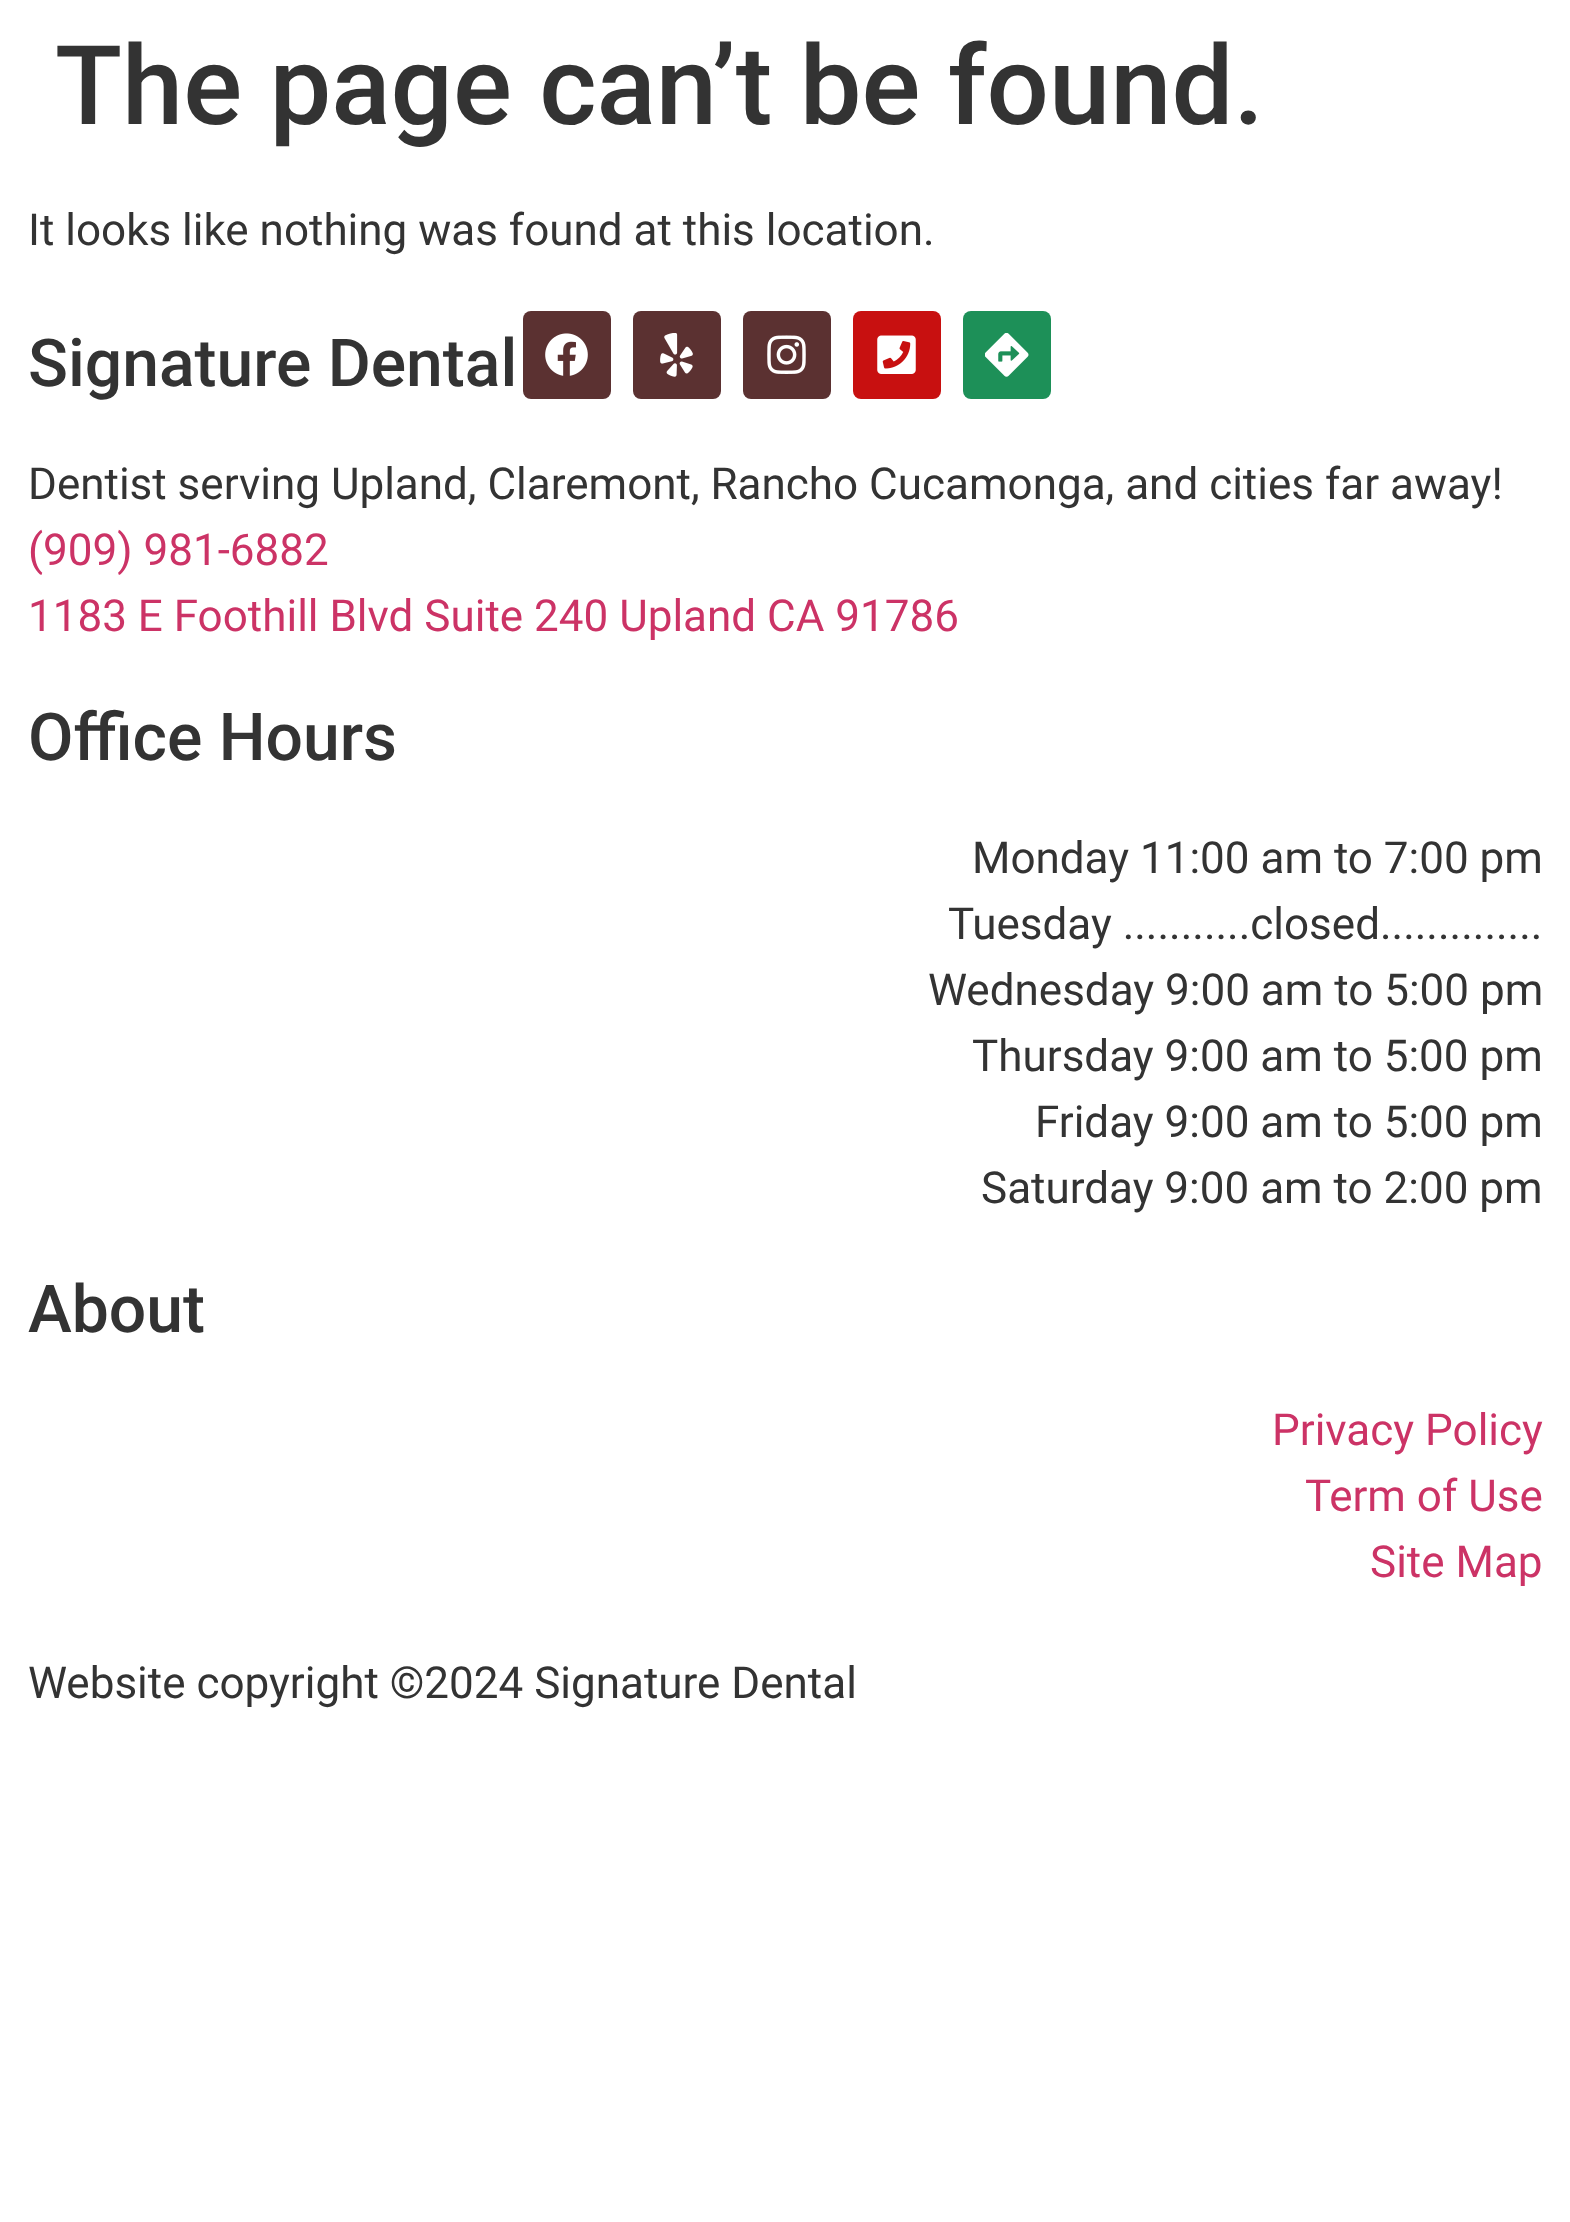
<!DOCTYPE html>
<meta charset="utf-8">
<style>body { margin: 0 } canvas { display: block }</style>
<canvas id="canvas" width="1570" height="2222"></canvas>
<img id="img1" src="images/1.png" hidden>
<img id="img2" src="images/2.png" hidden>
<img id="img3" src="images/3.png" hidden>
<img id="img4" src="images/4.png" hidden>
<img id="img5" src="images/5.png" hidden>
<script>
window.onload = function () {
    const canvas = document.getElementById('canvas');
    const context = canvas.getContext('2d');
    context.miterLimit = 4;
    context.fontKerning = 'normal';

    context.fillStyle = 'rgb(255, 255, 255)';
    context.fillRect(0, 0, 1570, 2222);
    context.fillStyle = 'rgb(91, 49, 49)';
    context.beginPath();
    context.roundRect(523, 311, 88, 88, 8);
    context.fill();
    context.drawImage(document.getElementById('img1'), 545, 333, 43, 43);
    context.beginPath();
    context.roundRect(633, 311, 88, 88, 8);
    context.fill();
    context.drawImage(document.getElementById('img2'), 660, 333, 33, 44);
    context.beginPath();
    context.roundRect(743, 311, 88, 88, 8);
    context.fill();
    context.drawImage(document.getElementById('img3'), 767, 335, 39, 39);
    context.fillStyle = 'rgb(200, 16, 16)';
    context.beginPath();
    context.roundRect(853, 311, 88, 88, 8);
    context.fill();
    context.drawImage(document.getElementById('img4'), 877, 335, 39, 39);
    context.fillStyle = 'rgb(29, 144, 88)';
    context.beginPath();
    context.roundRect(963, 311, 88, 88, 8);
    context.fill();
    context.drawImage(document.getElementById('img5'), 985, 333, 44, 44);
    context.font = '500 110px Roboto';
    context.fillStyle = 'rgb(51, 51, 51)';
    context.fillText('The page can’t be found.', 55, 124);
    context.font = '44px Roboto';
    context.fillText('It looks like nothing was found at this location.', 28, 245);
    context.font = '500 66px Roboto';
    context.fillText('Signature Dental', 28, 386);
    context.font = '44px Roboto';
    context.fillText('Dentist serving Upland, Claremont, Rancho Cucamonga, and cities far away!', 28, 499);
    context.fillStyle = 'rgb(204, 51, 102)';
    context.fillText('(909) 981-6882', 28, 565);
    context.fillText('1183 E Foothill Blvd Suite 240 Upland CA 91786', 28, 631);
    context.font = '500 66px Roboto';
    context.fillStyle = 'rgb(51, 51, 51)';
    context.fillText('Office Hours', 28, 760);
    context.font = '44px Roboto';
    context.fillText('Monday 11:00 am to 7:00 pm', 972, 873);
    context.fillText('Tuesday ...........closed..............', 948, 939);
    context.fillText('Wednesday 9:00 am to 5:00 pm', 928, 1005);
    context.fillText('Thursday 9:00 am to 5:00 pm', 972, 1071);
    context.fillText('Friday 9:00 am to 5:00 pm', 1035, 1137);
    context.fillText('Saturday 9:00 am to 2:00 pm', 981, 1203);
    context.font = '500 66px Roboto';
    context.fillText('About', 28, 1332);
    context.font = '44px Roboto';
    context.fillStyle = 'rgb(204, 51, 102)';
    context.fillText('Privacy Policy', 1272, 1445);
    context.fillText('Term of Use', 1305, 1511);
    context.fillText('Site Map', 1370, 1577);
    context.fillStyle = 'rgb(51, 51, 51)';
    context.fillText('Website copyright ©2024 Signature Dental', 28, 1698);
};
</script>
